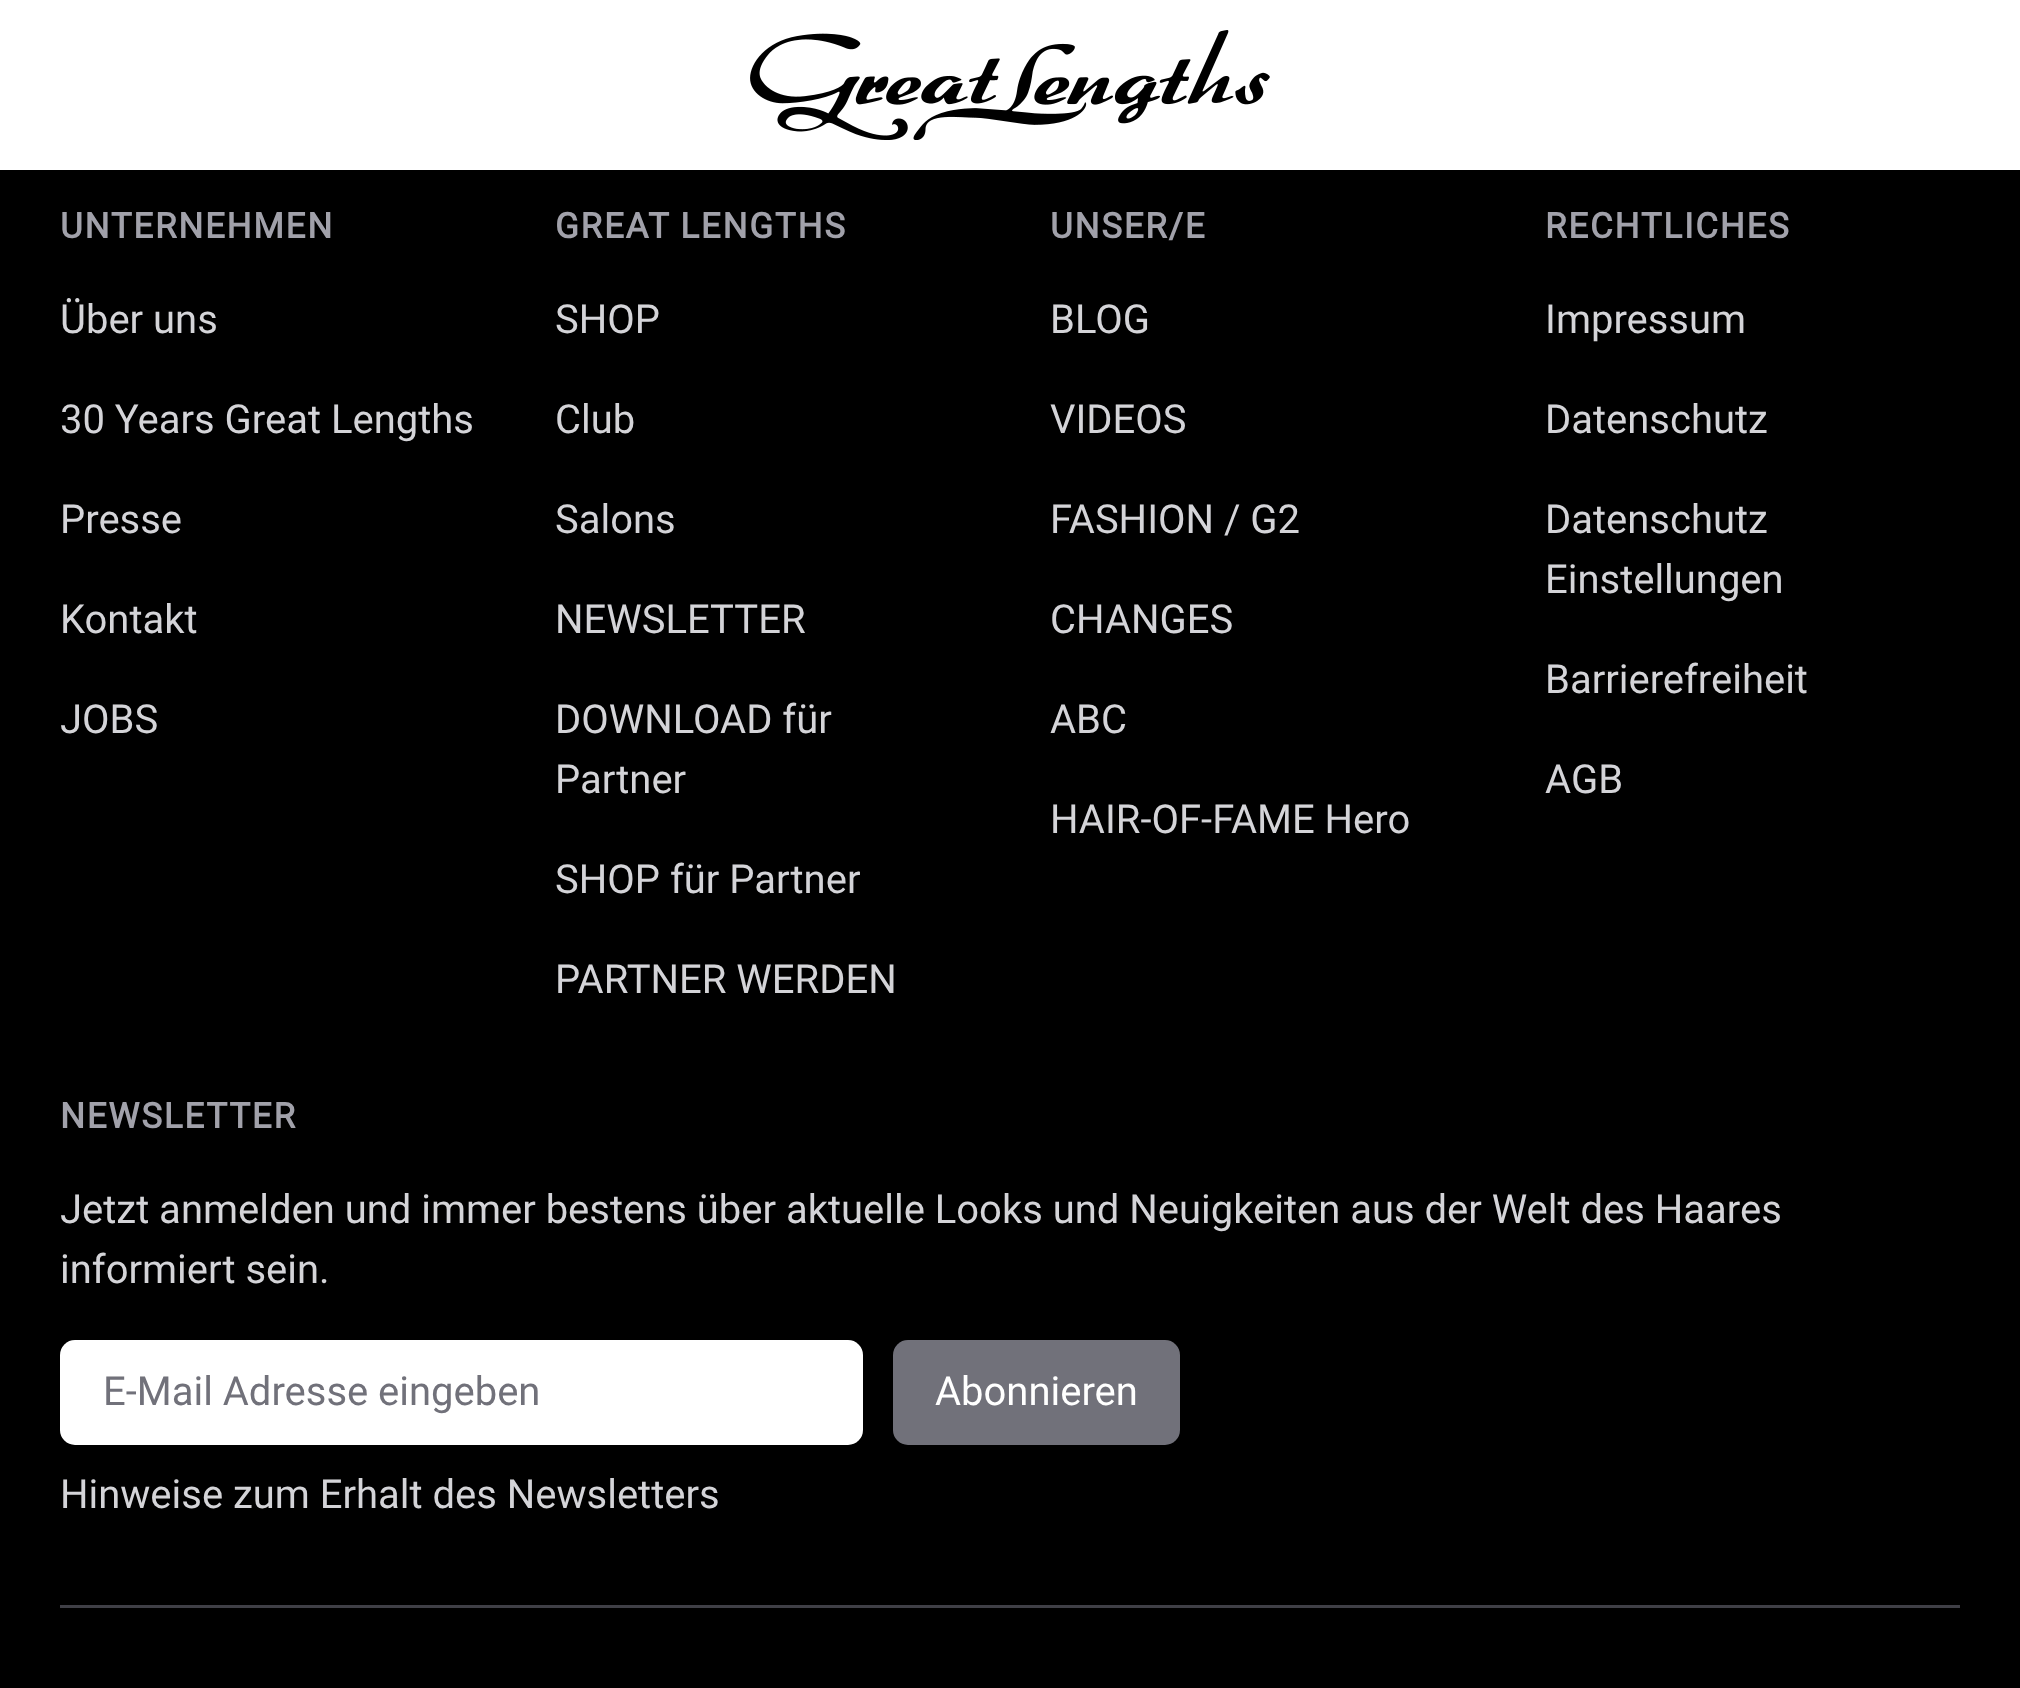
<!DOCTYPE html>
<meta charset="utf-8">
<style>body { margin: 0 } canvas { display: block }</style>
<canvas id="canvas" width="2020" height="1688"></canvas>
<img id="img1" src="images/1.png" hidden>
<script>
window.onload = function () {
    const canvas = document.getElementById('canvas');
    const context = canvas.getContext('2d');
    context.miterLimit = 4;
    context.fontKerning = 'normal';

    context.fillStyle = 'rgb(0, 0, 0)';
    context.fillRect(0, 0, 2020, 1688);
    context.fillStyle = 'rgb(255, 255, 255)';
    context.fillRect(0, 0, 2020, 170);
    context.drawImage(document.getElementById('img1'), 750, 30, 520, 110);
    context.beginPath();
    context.roundRect(60, 1340, 803, 105, 15);
    context.fill();
    context.fillStyle = 'rgb(113, 113, 122)';
    context.beginPath();
    context.roundRect(893, 1340, 287, 105, 15);
    context.fill();
    context.fillStyle = 'rgb(63, 63, 70)';
    context.fillRect(60, 1605, 1900, 3);
    context.letterSpacing = '1.75px';
    context.font = 'bold 35px Roboto';
    context.fillStyle = 'rgb(161, 161, 170)';
    context.fillText('UNTERNEHMEN', 60, 238);
    context.letterSpacing = '0px';
    context.font = '40px Roboto';
    context.fillStyle = 'rgb(212, 212, 216)';
    context.fillText('Über uns', 60, 333);
    context.fillText('30 Years Great Lengths', 60, 433);
    context.fillText('Presse', 60, 533);
    context.fillText('Kontakt', 60, 633);
    context.fillText('JOBS', 60, 733);
    context.letterSpacing = '1.75px';
    context.font = 'bold 35px Roboto';
    context.fillStyle = 'rgb(161, 161, 170)';
    context.fillText('GREAT LENGTHS', 555, 238);
    context.letterSpacing = '0px';
    context.font = '40px Roboto';
    context.fillStyle = 'rgb(212, 212, 216)';
    context.fillText('SHOP', 555, 333);
    context.fillText('Club', 555, 433);
    context.fillText('Salons', 555, 533);
    context.fillText('NEWSLETTER', 555, 633);
    context.fillText('DOWNLOAD für', 555, 733);
    context.fillText('Partner', 555, 793);
    context.fillText('SHOP für Partner', 555, 893);
    context.fillText('PARTNER WERDEN', 555, 993);
    context.letterSpacing = '1.75px';
    context.font = 'bold 35px Roboto';
    context.fillStyle = 'rgb(161, 161, 170)';
    context.fillText('UNSER/E', 1050, 238);
    context.letterSpacing = '0px';
    context.font = '40px Roboto';
    context.fillStyle = 'rgb(212, 212, 216)';
    context.fillText('BLOG', 1050, 333);
    context.fillText('VIDEOS', 1050, 433);
    context.fillText('FASHION / G2', 1050, 533);
    context.fillText('CHANGES', 1050, 633);
    context.fillText('ABC', 1050, 733);
    context.fillText('HAIR-OF-FAME Hero', 1050, 833);
    context.letterSpacing = '1.75px';
    context.font = 'bold 35px Roboto';
    context.fillStyle = 'rgb(161, 161, 170)';
    context.fillText('RECHTLICHES', 1545, 238);
    context.letterSpacing = '0px';
    context.font = '40px Roboto';
    context.fillStyle = 'rgb(212, 212, 216)';
    context.fillText('Impressum', 1545, 333);
    context.fillText('Datenschutz', 1545, 433);
    context.fillText('Datenschutz', 1545, 533);
    context.fillText('Einstellungen', 1545, 593);
    context.fillText('Barrierefreiheit', 1545, 693);
    context.fillText('AGB', 1545, 793);
    context.letterSpacing = '1.75px';
    context.font = 'bold 35px Roboto';
    context.fillStyle = 'rgb(161, 161, 170)';
    context.fillText('NEWSLETTER', 60, 1128);
    context.letterSpacing = '0px';
    context.font = '40px Roboto';
    context.fillStyle = 'rgb(212, 212, 216)';
    context.fillText('Jetzt anmelden und immer bestens über aktuelle Looks und Neuigkeiten aus der Welt des Haares', 60, 1223);
    context.fillText('informiert sein.', 60, 1283);
    context.fillStyle = 'rgb(113, 113, 122)';
    context.fillText('E-Mail Adresse eingeben', 103, 1405);
    context.fillStyle = 'rgb(255, 255, 255)';
    context.fillText('Abonnieren', 935, 1405);
    context.fillStyle = 'rgb(212, 212, 216)';
    context.fillText('Hinweise zum Erhalt des Newsletters', 60, 1508);
};
</script>
